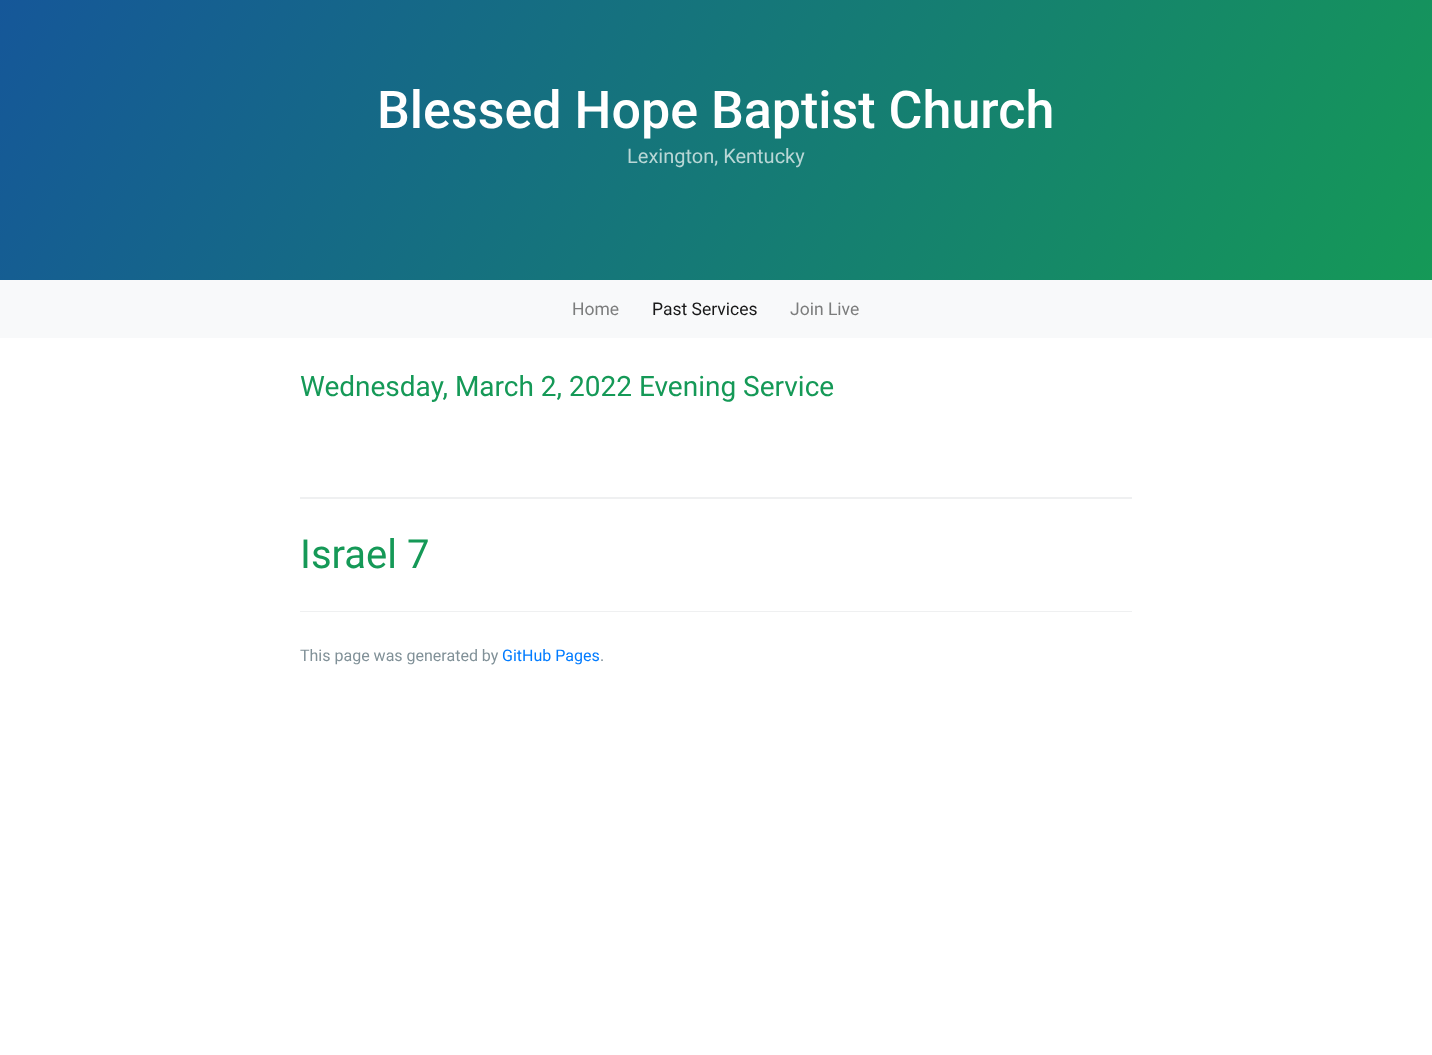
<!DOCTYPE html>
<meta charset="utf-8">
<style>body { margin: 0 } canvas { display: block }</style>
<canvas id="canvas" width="1432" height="1055"></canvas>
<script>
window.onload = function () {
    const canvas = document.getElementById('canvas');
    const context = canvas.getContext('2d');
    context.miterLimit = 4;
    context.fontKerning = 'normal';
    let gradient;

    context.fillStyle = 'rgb(255, 255, 255)';
    context.fillRect(0, 0, 1432, 1055);
    gradient = context.createLinearGradient(118, -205, 1314, 485);
    gradient.addColorStop(0, 'rgb(21, 87, 153)');
    gradient.addColorStop(1, 'rgb(21, 153, 87)');
    context.fillStyle = gradient;
    context.fillRect(0, 0, 1432, 280);
    context.fillStyle = 'rgb(248, 249, 250)';
    context.fillRect(0, 280, 1432, 58);
    context.fillStyle = 'rgb(239, 240, 241)';
    context.fillRect(300, 497, 832, 2);
    context.fillRect(300, 611, 832, 1);
    context.font = '500 52px Roboto';
    context.fillStyle = 'rgb(255, 255, 255)';
    context.fillText('Blessed Hope Baptist Church', 377, 128);
    context.font = '20px Roboto';
    context.fillStyle = 'rgb(185, 215, 214)';
    context.fillText('Lexington, Kentucky', 627, 163);
    context.font = '17.5px Roboto';
    context.fillStyle = 'rgb(124, 125, 125)';
    context.fillText('Home', 572, 315);
    context.fillStyle = 'rgb(25, 25, 25)';
    context.fillText('Past Services', 652, 315);
    context.fillStyle = 'rgb(124, 125, 125)';
    context.fillText('Join Live', 790, 315);
    context.font = '28px Roboto';
    context.fillStyle = 'rgb(21, 153, 87)';
    context.fillText('Wednesday, March 2, 2022 Evening Service', 300, 396);
    context.font = '40px Roboto';
    context.fillText('Israel 7', 300, 568);
    context.font = '16px Roboto';
    context.fillStyle = 'rgb(129, 145, 152)';
    context.fillText('This page was generated by', 300, 661);
    context.fillStyle = 'rgb(0, 123, 255)';
    context.fillText('GitHub Pages', 502, 661);
    context.fillStyle = 'rgb(129, 145, 152)';
    context.fillText('.', 600, 661);
};
</script>
